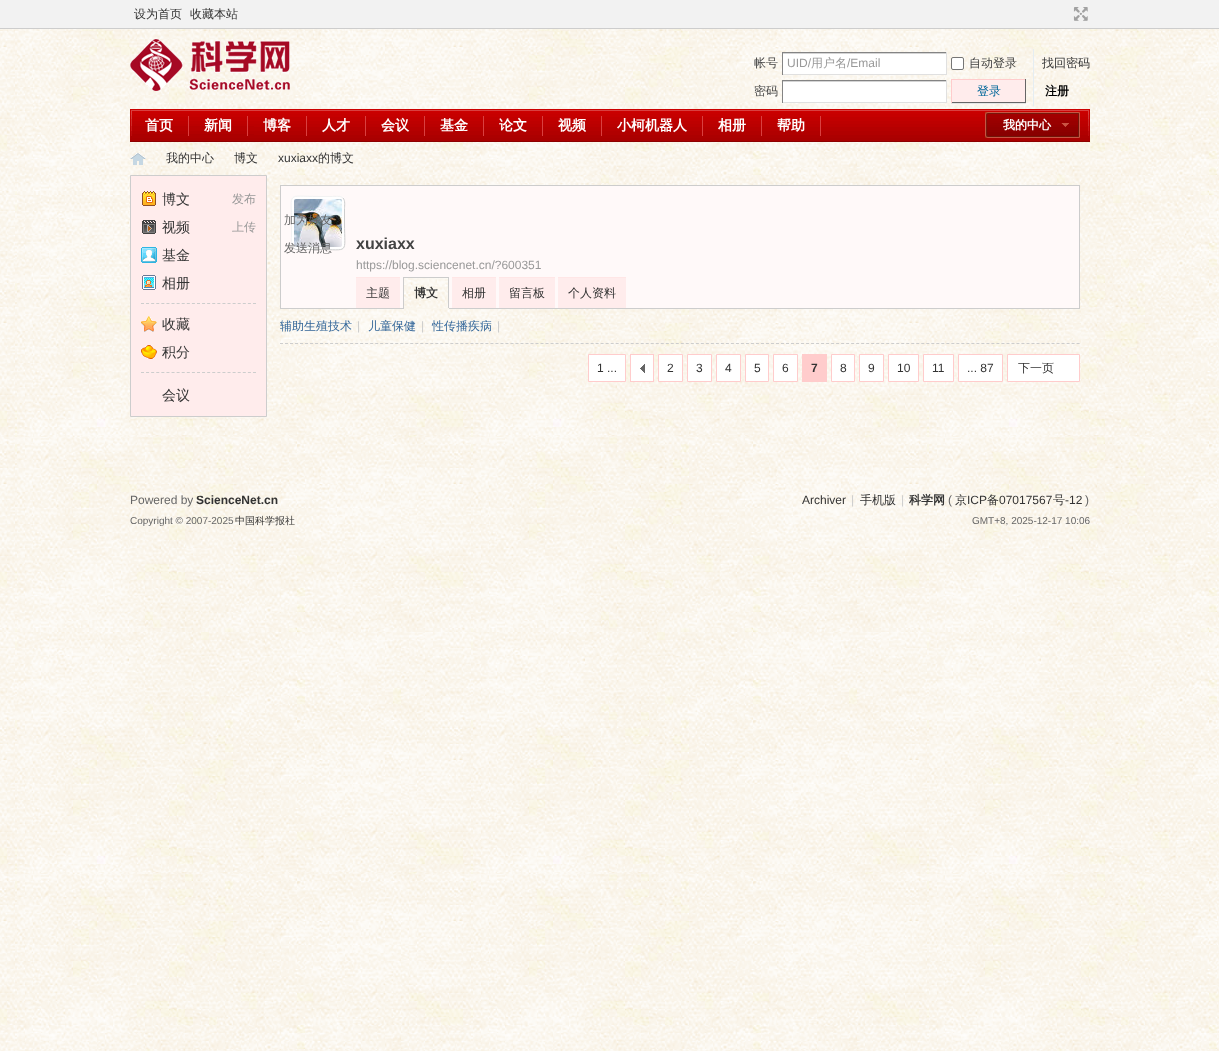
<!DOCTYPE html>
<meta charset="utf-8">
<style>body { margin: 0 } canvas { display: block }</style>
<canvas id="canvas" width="1219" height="1051"></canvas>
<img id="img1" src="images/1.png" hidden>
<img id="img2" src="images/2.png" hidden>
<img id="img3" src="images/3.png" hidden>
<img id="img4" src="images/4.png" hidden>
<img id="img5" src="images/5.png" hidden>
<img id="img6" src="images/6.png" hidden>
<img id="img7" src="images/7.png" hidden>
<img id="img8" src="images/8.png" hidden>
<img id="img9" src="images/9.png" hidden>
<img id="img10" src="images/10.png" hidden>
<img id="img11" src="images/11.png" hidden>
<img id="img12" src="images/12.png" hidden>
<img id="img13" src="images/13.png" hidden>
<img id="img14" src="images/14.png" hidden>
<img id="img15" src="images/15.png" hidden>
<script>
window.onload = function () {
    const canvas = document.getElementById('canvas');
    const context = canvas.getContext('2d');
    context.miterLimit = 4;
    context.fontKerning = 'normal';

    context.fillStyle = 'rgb(255, 255, 255)';
    context.fillRect(0, 0, 1219, 1051);
    context.drawImage(document.getElementById('img1'), 0, 29, 1219, 1022);
    context.fillStyle = 'rgb(242, 242, 242)';
    context.fillRect(0, 0, 1219, 28);
    context.fillStyle = 'rgb(205, 205, 205)';
    context.fillRect(0, 28, 1219, 1);
    context.drawImage(document.getElementById('img2'), 1073, 7, 15, 14);
    context.drawImage(document.getElementById('img3'), 130, 39, 160, 52);
    context.fillStyle = 'rgb(255, 255, 255)';
    context.fillRect(783, 54, 163, 20);
    context.fillStyle = 'rgb(212, 212, 212)';
    context.fillRect(782, 53, 165, 1);
    context.fillStyle = 'rgb(132, 132, 132)';
    context.fillRect(782, 52, 165, 1);
    context.fillStyle = 'rgb(224, 224, 224)';
    context.fillRect(946, 52, 1, 23);
    context.fillRect(782, 74, 165, 1);
    context.fillStyle = 'rgb(132, 132, 132)';
    context.fillRect(782, 52, 1, 23);
    context.fillStyle = 'rgb(255, 255, 255)';
    context.beginPath();
    context.roundRect(951.5, 57.5, 12, 12, 1.5);
    context.fill();
    context.strokeStyle = 'rgb(118, 118, 118)';
    context.stroke();
    context.fillRect(783, 82, 163, 20);
    context.fillStyle = 'rgb(212, 212, 212)';
    context.fillRect(782, 81, 165, 1);
    context.fillStyle = 'rgb(132, 132, 132)';
    context.fillRect(782, 80, 165, 1);
    context.fillStyle = 'rgb(224, 224, 224)';
    context.fillRect(946, 80, 1, 23);
    context.fillRect(782, 102, 165, 1);
    context.fillStyle = 'rgb(132, 132, 132)';
    context.fillRect(782, 80, 1, 23);
    context.fillStyle = 'rgb(229, 237, 242)';
    context.fillRect(1033, 49, 1, 57);
    context.fillStyle = 'rgb(229, 229, 229)';
    context.fillRect(951, 103, 75, 1);
    context.fillStyle = 'rgb(255, 236, 236)';
    context.fillRect(952, 80, 73, 22);
    context.fillStyle = 'rgb(255, 204, 204)';
    context.fillRect(951, 79, 75, 1);
    context.fillStyle = 'rgb(102, 102, 102)';
    context.fillRect(1025, 79, 1, 24);
    context.fillRect(951, 102, 75, 1);
    context.fillStyle = 'rgb(255, 204, 204)';
    context.fillRect(951, 79, 1, 24);
    context.drawImage(document.getElementById('img4'), 130, 109, 960, 33);
    context.fillStyle = 'rgb(217, 64, 64)';
    context.fillRect(188, 116, 1, 20);
    context.fillRect(247, 116, 1, 20);
    context.fillRect(306, 116, 1, 20);
    context.fillRect(365, 116, 1, 20);
    context.fillRect(424, 116, 1, 20);
    context.fillRect(483, 116, 1, 20);
    context.fillRect(542, 116, 1, 20);
    context.fillRect(601, 116, 1, 20);
    context.fillRect(702, 116, 1, 20);
    context.fillRect(761, 116, 1, 20);
    context.fillRect(820, 116, 1, 20);
    context.drawImage(document.getElementById('img5'), 985, 112, 95, 26);
    context.drawImage(document.getElementById('img6'), 130, 153, 16, 12);
    context.fillStyle = 'rgb(255, 236, 236)';
    context.beginPath();
    context.rect(130.5, 175.5, 136, 241);
    context.fill();
    context.strokeStyle = 'rgb(205, 205, 205)';
    context.stroke();
    context.drawImage(document.getElementById('img7'), 142, 191, 14, 15);
    context.drawImage(document.getElementById('img8'), 142, 220, 14, 14);
    context.drawImage(document.getElementById('img9'), 141, 247, 16, 16);
    context.drawImage(document.getElementById('img10'), 142, 275, 14, 15);
    context.beginPath();
    context.moveTo(141, 303.5);
    context.lineTo(256, 303.5);
    context.setLineDash([3, 2.09]);
    context.stroke();
    context.drawImage(document.getElementById('img11'), 141, 316, 16, 16);
    context.drawImage(document.getElementById('img12'), 141, 345, 16, 14);
    context.beginPath();
    context.moveTo(141, 372.5);
    context.lineTo(256, 372.5);
    context.stroke();
    context.fillStyle = 'rgb(255, 249, 249)';
    context.fillRect(281, 186, 798, 122);
    context.fillStyle = 'rgb(204, 204, 204)';
    context.fillRect(280, 185, 800, 1);
    context.fillRect(1079, 185, 1, 124);
    context.fillRect(280, 185, 1, 124);
    context.fillStyle = 'rgb(255, 255, 255)';
    context.beginPath();
    context.roundRect(291, 196, 54, 54, 5);
    context.fill();
    context.beginPath();
    context.moveTo(343, 198);
    context.bezierCurveTo(345.5, 200.5, 344.5, 206, 344.5, 208.5);
    context.lineTo(344.5, 223);
    context.bezierCurveTo(344.5, 255, 350, 249.5, 318, 249.5);
    context.lineTo(303.5, 249.5);
    context.bezierCurveTo(301, 249.5, 295.5, 250.5, 293, 248);
    context.setLineDash([]);
    context.stroke();
    context.beginPath();
    context.moveTo(293, 248);
    context.bezierCurveTo(290.5, 245.5, 291.5, 240, 291.5, 237.5);
    context.lineTo(291.5, 223);
    context.bezierCurveTo(291.5, 191, 286, 196.5, 318, 196.5);
    context.lineTo(332.5, 196.5);
    context.bezierCurveTo(335, 196.5, 340.5, 195.5, 343, 198);
    context.strokeStyle = 'rgb(242, 242, 242)';
    context.stroke();
    context.drawImage(document.getElementById('img13'), 294, 199, 48, 48);
    context.fillStyle = 'rgb(205, 205, 205)';
    context.fillRect(281, 308, 798, 1);
    context.fillStyle = 'rgb(255, 236, 236)';
    context.fillRect(356, 278, 44, 30);
    context.fillStyle = 'rgb(255, 230, 230)';
    context.fillRect(356, 277, 44, 1);
    context.drawImage(document.getElementById('img14'), 404, 278, 44, 30);
    context.fillStyle = 'rgb(204, 204, 204)';
    context.fillRect(403, 277, 46, 1);
    context.fillRect(448, 277, 1, 32);
    context.fillStyle = 'rgb(250, 246, 237)';
    context.fillRect(403, 308, 46, 1);
    context.fillStyle = 'rgb(204, 204, 204)';
    context.fillRect(403, 277, 1, 32);
    context.fillStyle = 'rgb(255, 236, 236)';
    context.fillRect(452, 278, 44, 30);
    context.fillStyle = 'rgb(255, 230, 230)';
    context.fillRect(452, 277, 44, 1);
    context.fillStyle = 'rgb(255, 236, 236)';
    context.fillRect(499, 278, 56, 30);
    context.fillStyle = 'rgb(255, 230, 230)';
    context.fillRect(499, 277, 56, 1);
    context.fillStyle = 'rgb(255, 236, 236)';
    context.fillRect(558, 278, 68, 30);
    context.fillStyle = 'rgb(255, 230, 230)';
    context.fillRect(558, 277, 68, 1);
    context.beginPath();
    context.moveTo(280, 343.5);
    context.lineTo(1080, 343.5);
    context.strokeStyle = 'rgb(205, 205, 205)';
    context.setLineDash([3, 2.01]);
    context.stroke();
    context.fillStyle = 'rgb(255, 255, 255)';
    context.beginPath();
    context.rect(588.5, 354.5, 37, 27);
    context.fill();
    context.strokeStyle = 'rgb(255, 204, 204)';
    context.setLineDash([]);
    context.stroke();
    context.fillRect(631, 355, 22, 26);
    context.drawImage(document.getElementById('img15'), 640, 364, 5, 9);
    context.strokeRect(630.5, 354.5, 23, 27);
    context.beginPath();
    context.rect(658.5, 354.5, 24, 27);
    context.fill();
    context.stroke();
    context.beginPath();
    context.rect(687.5, 354.5, 24, 27);
    context.fill();
    context.stroke();
    context.beginPath();
    context.rect(716.5, 354.5, 24, 27);
    context.fill();
    context.stroke();
    context.beginPath();
    context.rect(745.5, 354.5, 23, 27);
    context.fill();
    context.stroke();
    context.beginPath();
    context.rect(773.5, 354.5, 24, 27);
    context.fill();
    context.stroke();
    context.fillStyle = 'rgb(255, 204, 204)';
    context.fillRect(802, 354, 25, 28);
    context.fillStyle = 'rgb(255, 255, 255)';
    context.beginPath();
    context.rect(831.5, 354.5, 23, 27);
    context.fill();
    context.stroke();
    context.beginPath();
    context.rect(859.5, 354.5, 24, 27);
    context.fill();
    context.stroke();
    context.beginPath();
    context.rect(888.5, 354.5, 30, 27);
    context.fill();
    context.stroke();
    context.beginPath();
    context.rect(923.5, 354.5, 30, 27);
    context.fill();
    context.stroke();
    context.beginPath();
    context.rect(958.5, 354.5, 44, 27);
    context.fill();
    context.stroke();
    context.beginPath();
    context.rect(1007.5, 354.5, 72, 27);
    context.fill();
    context.stroke();
    context.font = '500 12px WenQuanYi Zen Hei';
    context.fillStyle = 'rgb(51, 51, 51)';
    context.fillText('设为首页', 134, 18);
    context.fillText('收藏本站', 190, 18);
    context.fillStyle = 'rgb(68, 68, 68)';
    context.fillText('帐号', 754, 67);
    context.font = '12px Liberation Sans';
    context.fillStyle = 'rgb(153, 153, 153)';
    context.fillText('UID/', 787, 67);
    context.font = '500 12px WenQuanYi Zen Hei';
    context.fillText('用户名', 811, 67);
    context.font = '12px Liberation Sans';
    context.fillText('/Email', 847, 67);
    context.font = '500 12px WenQuanYi Zen Hei';
    context.fillStyle = 'rgb(68, 68, 68)';
    context.fillText('自动登录', 969, 67);
    context.fillStyle = 'rgb(51, 51, 51)';
    context.fillText('找回密码', 1042, 67);
    context.fillStyle = 'rgb(68, 68, 68)';
    context.fillText('密码', 754, 95);
    context.fillStyle = 'rgb(0, 102, 153)';
    context.fillText('登录', 977, 95);
    context.font = 'bold 12px WenQuanYi Zen Hei';
    context.fillStyle = 'rgb(0, 0, 0)';
    context.fillText('注册', 1045, 95);
    context.font = 'bold 14px WenQuanYi Zen Hei';
    context.fillStyle = 'rgb(255, 255, 255)';
    context.fillText('首页', 145, 130);
    context.fillText('新闻', 204, 130);
    context.fillText('博客', 263, 130);
    context.fillText('人才', 322, 130);
    context.fillText('会议', 381, 130);
    context.fillText('基金', 440, 130);
    context.fillText('论文', 499, 130);
    context.fillText('视频', 558, 130);
    context.fillText('小柯机器人', 617, 130);
    context.fillText('相册', 718, 130);
    context.fillText('帮助', 777, 130);
    context.font = 'bold 12px WenQuanYi Zen Hei';
    context.fillText('我的中心', 1003, 129);
    context.font = '500 12px WenQuanYi Zen Hei';
    context.fillStyle = 'rgb(51, 51, 51)';
    context.fillText('我的中心', 166, 162);
    context.fillText('博文', 234, 162);
    context.font = '12px Liberation Sans';
    context.fillText('xuxiaxx', 278, 162);
    context.font = '500 12px WenQuanYi Zen Hei';
    context.fillText('的博文', 318, 162);
    context.font = '500 14px WenQuanYi Zen Hei';
    context.fillText('博文', 162, 204);
    context.font = '500 12px WenQuanYi Zen Hei';
    context.fillStyle = 'rgb(153, 153, 153)';
    context.fillText('发布', 232, 203);
    context.font = '500 14px WenQuanYi Zen Hei';
    context.fillStyle = 'rgb(51, 51, 51)';
    context.fillText('视频', 162, 232);
    context.font = '500 12px WenQuanYi Zen Hei';
    context.fillStyle = 'rgb(153, 153, 153)';
    context.fillText('上传', 232, 231);
    context.font = '500 14px WenQuanYi Zen Hei';
    context.fillStyle = 'rgb(51, 51, 51)';
    context.fillText('基金', 162, 260);
    context.fillText('相册', 162, 288);
    context.fillText('收藏', 162, 329);
    context.fillText('积分', 162, 357);
    context.fillText('会议', 162, 400);
    context.font = '500 12px WenQuanYi Zen Hei';
    context.fillStyle = 'rgb(102, 102, 102)';
    context.fillText('加为好友', 284, 224);
    context.fillText('发送消息', 284, 252);
    context.font = 'bold 16px Liberation Sans';
    context.fillStyle = 'rgb(68, 68, 68)';
    context.fillText('xuxiaxx', 356, 249);
    context.font = '12px Liberation Sans';
    context.fillStyle = 'rgb(153, 153, 153)';
    context.fillText('https://blog.sciencenet.cn/?600351', 356, 269);
    context.font = '500 12px WenQuanYi Zen Hei';
    context.fillStyle = 'rgb(51, 51, 51)';
    context.fillText('主题', 366, 297);
    context.font = 'bold 12px WenQuanYi Zen Hei';
    context.fillText('博文', 414, 297);
    context.font = '500 12px WenQuanYi Zen Hei';
    context.fillText('相册', 462, 297);
    context.fillText('留言板', 509, 297);
    context.fillText('个人资料', 568, 297);
    context.fillStyle = 'rgb(51, 102, 153)';
    context.fillText('辅助生殖技术', 280, 330);
    context.font = '12px Liberation Sans';
    context.fillStyle = 'rgb(204, 204, 204)';
    context.fillText('|', 357, 330);
    context.font = '500 12px WenQuanYi Zen Hei';
    context.fillStyle = 'rgb(51, 102, 153)';
    context.fillText('儿童保健', 368, 330);
    context.font = '12px Liberation Sans';
    context.fillStyle = 'rgb(204, 204, 204)';
    context.fillText('|', 421, 330);
    context.font = '500 12px WenQuanYi Zen Hei';
    context.fillStyle = 'rgb(51, 102, 153)';
    context.fillText('性传播疾病', 432, 330);
    context.font = '12px Liberation Sans';
    context.fillStyle = 'rgb(204, 204, 204)';
    context.fillText('|', 497, 330);
    context.fillStyle = 'rgb(51, 51, 51)';
    context.fillText('1 ...', 597, 372);
    context.fillText('2', 667, 372);
    context.fillText('3', 696, 372);
    context.fillText('4', 725, 372);
    context.fillText('5', 754, 372);
    context.fillText('6', 782, 372);
    context.font = 'bold 12px Liberation Sans';
    context.fillText('7', 811, 372);
    context.font = '12px Liberation Sans';
    context.fillText('8', 840, 372);
    context.fillText('9', 868, 372);
    context.fillText('10', 897, 372);
    context.fillText('11', 932, 372);
    context.fillText('... 87', 967, 372);
    context.font = '500 12px WenQuanYi Zen Hei';
    context.fillText('下一页', 1018, 372);
    context.font = '12px Liberation Sans';
    context.fillStyle = 'rgb(102, 102, 102)';
    context.fillText('Powered by', 130, 504);
    context.font = 'bold 12px Liberation Sans';
    context.fillStyle = 'rgb(51, 51, 51)';
    context.fillText('ScienceNet.cn', 196, 504);
    context.font = '10px Liberation Sans';
    context.fillStyle = 'rgb(102, 102, 102)';
    context.fillText('Copyright © 2007-2025', 130, 524);
    context.font = '500 10px WenQuanYi Zen Hei';
    context.fillStyle = 'rgb(51, 51, 51)';
    context.fillText('中国科学报社', 235, 524);
    context.font = '12px Liberation Sans';
    context.fillText('Archiver', 802, 504);
    context.fillStyle = 'rgb(204, 204, 204)';
    context.fillText('|', 851, 504);
    context.font = '500 12px WenQuanYi Zen Hei';
    context.fillStyle = 'rgb(51, 51, 51)';
    context.fillText('手机版', 860, 504);
    context.font = '12px Liberation Sans';
    context.fillStyle = 'rgb(204, 204, 204)';
    context.fillText('|', 901, 504);
    context.font = 'bold 12px WenQuanYi Zen Hei';
    context.fillStyle = 'rgb(51, 51, 51)';
    context.fillText('科学网', 909, 504);
    context.font = '12px Liberation Sans';
    context.fillStyle = 'rgb(102, 102, 102)';
    context.fillText('(', 948, 504);
    context.font = '500 12px WenQuanYi Zen Hei';
    context.fillStyle = 'rgb(51, 51, 51)';
    context.fillText('京', 955, 504);
    context.font = '12px Liberation Sans';
    context.fillText('ICP', 967, 504);
    context.font = '500 12px WenQuanYi Zen Hei';
    context.fillText('备', 987, 504);
    context.font = '12px Liberation Sans';
    context.fillText('07017567', 999, 504);
    context.font = '500 12px WenQuanYi Zen Hei';
    context.fillText('号', 1053, 504);
    context.font = '12px Liberation Sans';
    context.fillText('-12', 1065, 504);
    context.fillStyle = 'rgb(102, 102, 102)';
    context.fillText(')', 1085, 504);
    context.font = '10px Liberation Sans';
    context.fillText('GMT+8, 2025-12-17 10:06', 972, 524);
};
</script>
